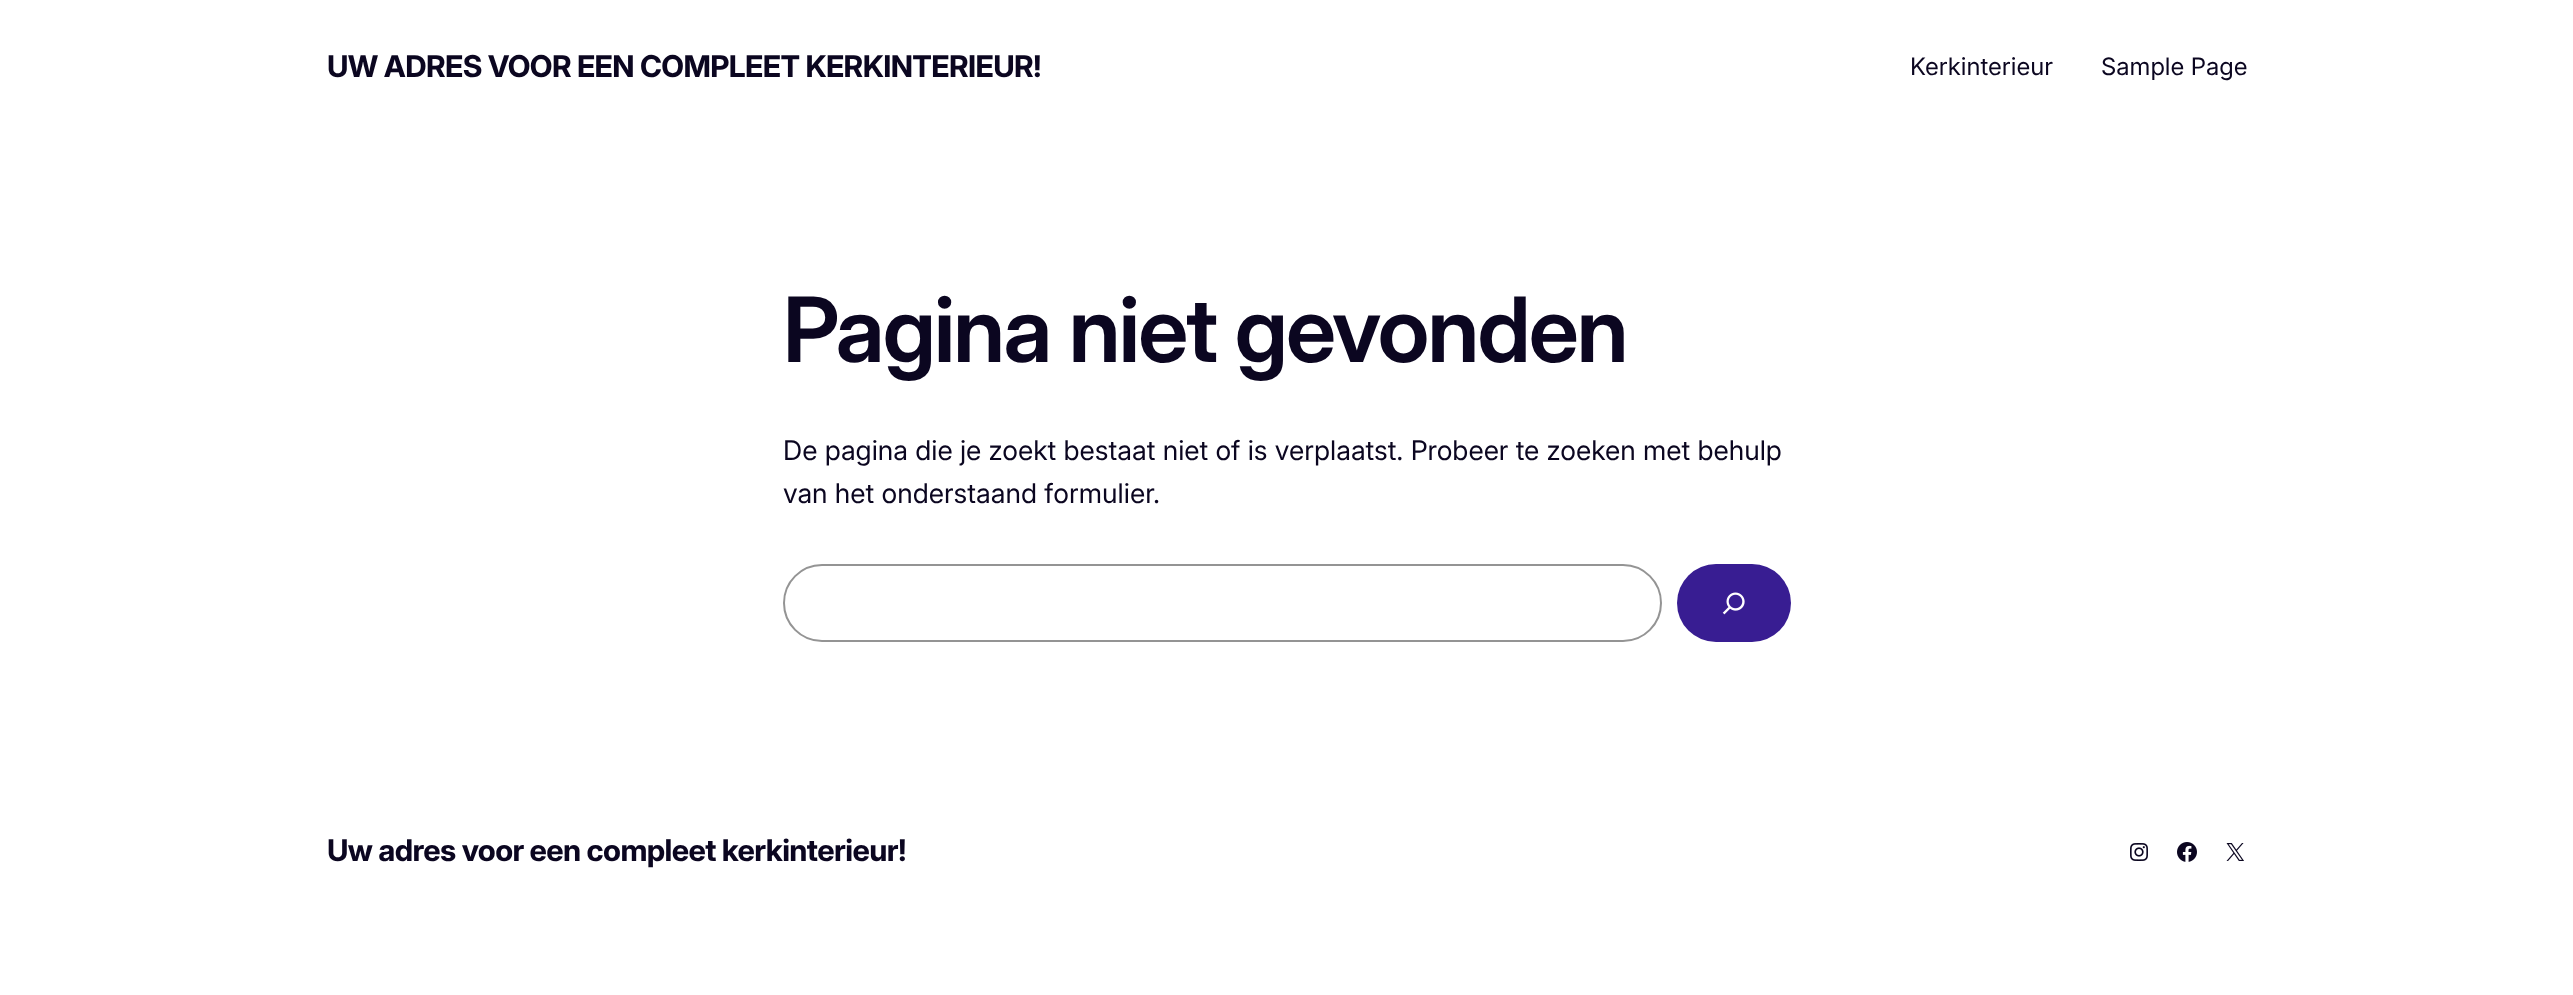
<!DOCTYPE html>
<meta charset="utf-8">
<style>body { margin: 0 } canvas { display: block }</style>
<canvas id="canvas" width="2573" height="995"></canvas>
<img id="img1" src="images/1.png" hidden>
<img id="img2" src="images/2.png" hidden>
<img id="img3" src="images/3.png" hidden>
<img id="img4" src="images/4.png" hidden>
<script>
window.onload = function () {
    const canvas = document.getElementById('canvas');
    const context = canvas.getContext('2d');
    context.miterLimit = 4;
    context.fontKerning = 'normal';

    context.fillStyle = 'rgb(255, 255, 255)';
    context.fillRect(0, 0, 2573, 995);
    context.beginPath();
    context.roundRect(784, 565, 877, 76, 38);
    context.strokeStyle = 'rgb(148, 148, 148)';
    context.lineWidth = 2;
    context.stroke();
    context.fillStyle = 'rgb(56, 29, 146)';
    context.beginPath();
    context.roundRect(1677, 564, 114, 78, 39);
    context.fill();
    context.drawImage(document.getElementById('img1'), 1722, 592, 23, 23);
    context.drawImage(document.getElementById('img2'), 2130, 843, 18, 18);
    context.drawImage(document.getElementById('img3'), 2177, 842, 20, 20);
    context.drawImage(document.getElementById('img4'), 2226, 843, 18, 18);
    context.letterSpacing = '-0.6px';
    context.font = 'bold 30px Inter';
    context.fillStyle = 'rgb(11, 6, 32)';
    context.fillText('UW ADRES VOOR EEN COMPLEET KERKINTERIEUR!', 327, 77);
    context.letterSpacing = '0px';
    context.font = '24px Inter';
    context.fillText('Kerkinterieur', 1910, 75);
    context.fillText('Sample Page', 2101, 75);
    context.letterSpacing = '-1.8px';
    context.font = '600 90px Inter';
    context.fillText('Pagina niet gevonden', 783, 362);
    context.letterSpacing = '0px';
    context.font = '27px "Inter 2"';
    context.fillText('De pagina die je zoekt bestaat niet of is verplaatst. Probeer te zoeken met behulp', 783, 460);
    context.fillText('van het onderstaand formulier.', 783, 503);
    context.letterSpacing = '-0.6px';
    context.font = 'bold 30px Inter';
    context.fillText('Uw adres voor een compleet kerkinterieur!', 327, 861);
};
</script>
